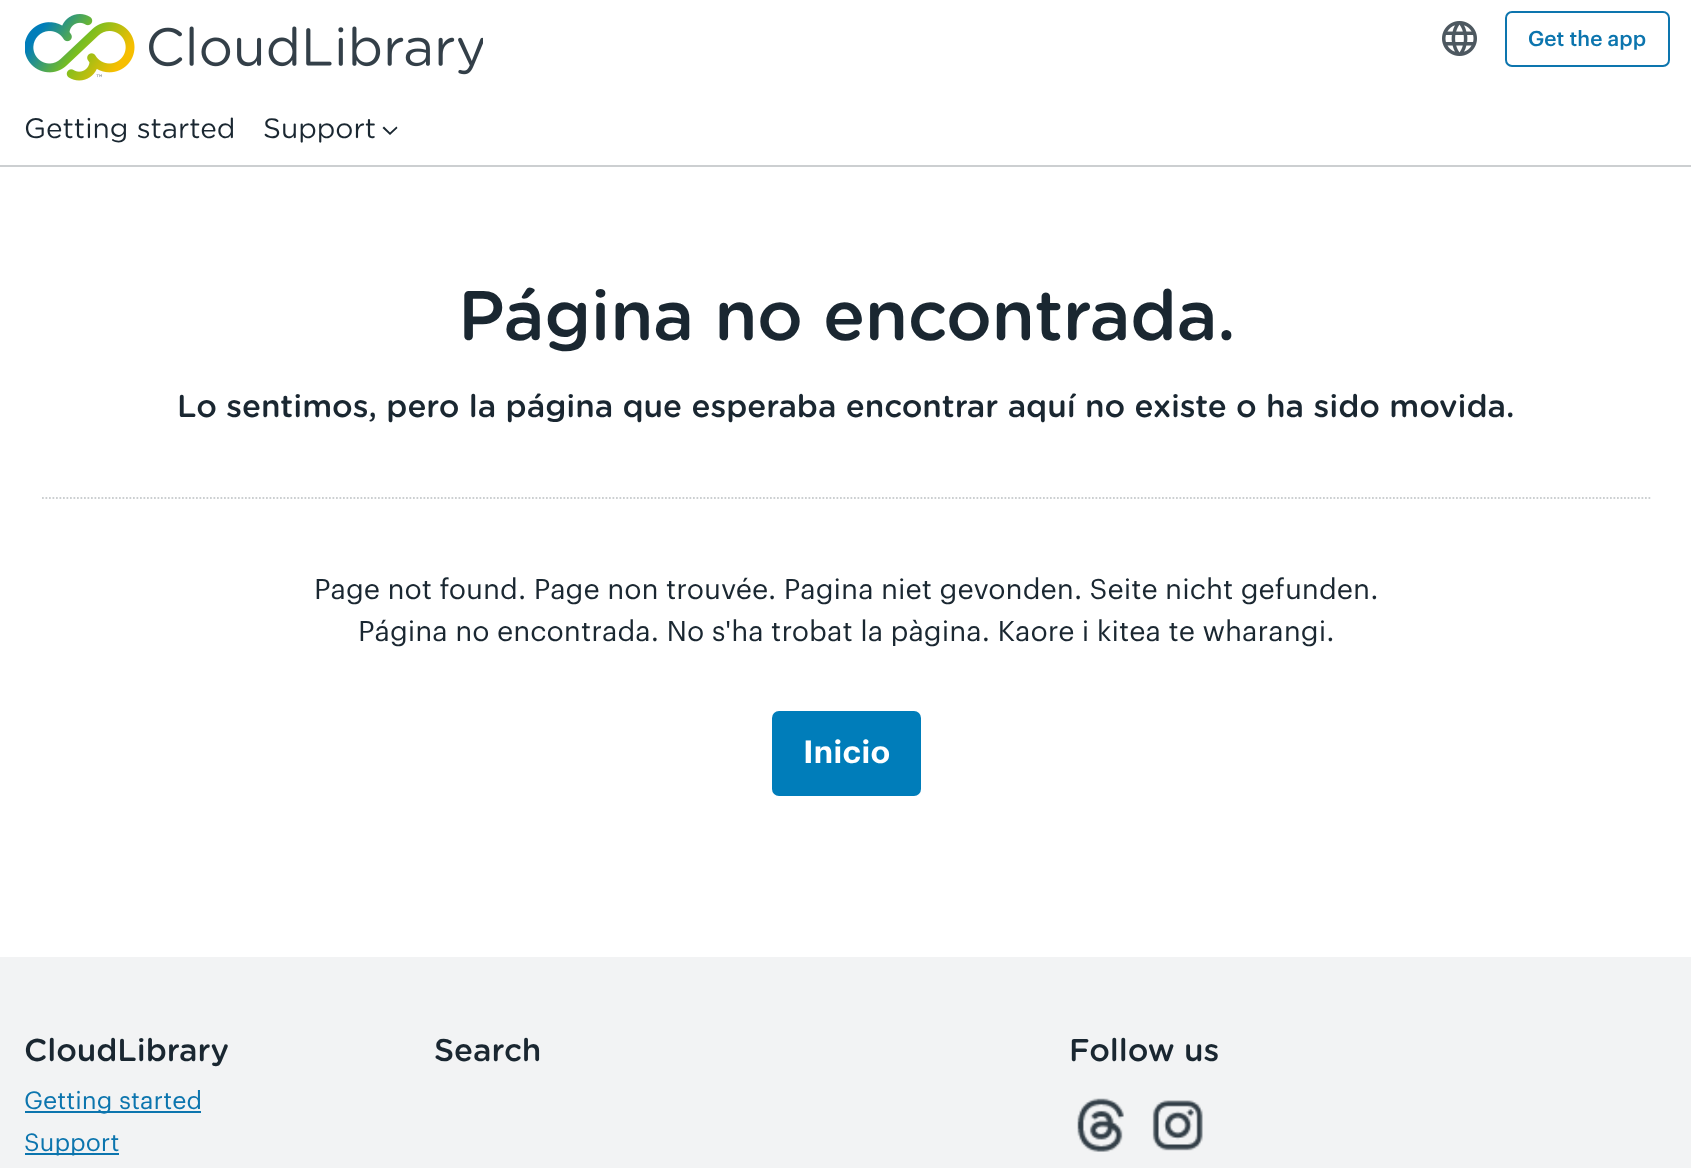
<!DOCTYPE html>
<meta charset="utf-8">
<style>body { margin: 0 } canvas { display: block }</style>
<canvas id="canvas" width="1691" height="1168"></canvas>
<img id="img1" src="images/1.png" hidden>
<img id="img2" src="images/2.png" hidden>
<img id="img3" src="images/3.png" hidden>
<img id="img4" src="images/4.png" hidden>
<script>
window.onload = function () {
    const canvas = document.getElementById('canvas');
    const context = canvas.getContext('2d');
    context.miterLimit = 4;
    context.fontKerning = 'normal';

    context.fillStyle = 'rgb(255, 255, 255)';
    context.fillRect(0, 0, 1691, 1168);
    context.fillStyle = 'rgb(204, 207, 209)';
    context.fillRect(0, 165, 1691, 2);
    context.drawImage(document.getElementById('img1'), 25, 14, 458, 67);
    context.drawImage(document.getElementById('img2'), 1442, 21, 35, 35);
    context.beginPath();
    context.roundRect(1506, 12, 163, 54, 6);
    context.strokeStyle = 'rgb(13, 117, 174)';
    context.lineWidth = 2;
    context.stroke();
    context.fillStyle = 'rgb(26, 39, 49)';
    context.beginPath();
    context.moveTo(397.5, 128);
    context.lineTo(390, 135);
    context.lineTo(390, 132.5);
    context.lineTo(396.5, 126.5);
    context.closePath();
    context.moveTo(390, 135);
    context.lineTo(382.5, 128);
    context.lineTo(384, 126.5);
    context.lineTo(390, 132.5);
    context.closePath();
    context.fill();
    context.beginPath();
    context.moveTo(42, 498);
    context.lineTo(1652, 498);
    context.strokeStyle = 'rgb(204, 207, 209)';
    context.lineWidth = 1.8;
    context.setLineDash([1.75, 1.75]);
    context.stroke();
    context.fillStyle = 'rgb(0, 125, 186)';
    context.beginPath();
    context.roundRect(772, 711, 149, 85, 7);
    context.fill();
    context.fillStyle = 'rgb(242, 243, 244)';
    context.fillRect(0, 957, 1691, 211);
    context.fillStyle = 'rgb(12, 117, 174)';
    context.fillRect(25, 1111, 176, 2);
    context.fillRect(25, 1153, 94, 2);
    context.drawImage(document.getElementById('img3'), 1077, 1098, 47, 54);
    context.drawImage(document.getElementById('img4'), 1152, 1100, 51, 51);
    context.font = '500 21px Graphik';
    context.fillText('Get the app', 1528, 46);
    context.font = '28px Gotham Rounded';
    context.fillStyle = 'rgb(26, 39, 49)';
    context.fillText('Getting started', 24, 138);
    context.fillText('Support', 263, 138);
    context.letterSpacing = '-0.5px';
    context.font = '500 70px Gotham Rounded';
    context.fillText('Página no encontrada.', 458, 340);
    context.letterSpacing = '-0.05px';
    context.font = '500 31.5px Gotham Rounded';
    context.fillText('Lo sentimos, pero la página que esperaba encontrar aquí no existe o ha sido movida.', 177, 417);
    context.letterSpacing = '0px';
    context.font = '28px Graphik';
    context.fillText('Page not found. Page non trouvée. Pagina niet gevonden. Seite nicht gefunden.', 314, 599);
    context.fillText('Página no encontrada. No s\'ha trobat la pàgina. Kaore i kitea te wharangi.', 358, 641);
    context.font = '600 31.5px Graphik';
    context.fillStyle = 'rgb(255, 255, 255)';
    context.fillText('Inicio', 803, 763);
    context.letterSpacing = '-0.05px';
    context.font = '500 31.5px Gotham Rounded';
    context.fillStyle = 'rgb(26, 39, 49)';
    context.fillText('CloudLibrary', 24, 1061);
    context.letterSpacing = '0px';
    context.font = '24.5px Graphik';
    context.fillStyle = 'rgb(12, 117, 174)';
    context.fillText('Getting started', 24, 1109);
    context.fillText('Support', 24, 1151);
    context.letterSpacing = '-0.05px';
    context.font = '500 31.5px Gotham Rounded';
    context.fillStyle = 'rgb(26, 39, 49)';
    context.fillText('Search', 434, 1061);
    context.fillText('Follow us', 1069, 1061);
};
</script>
